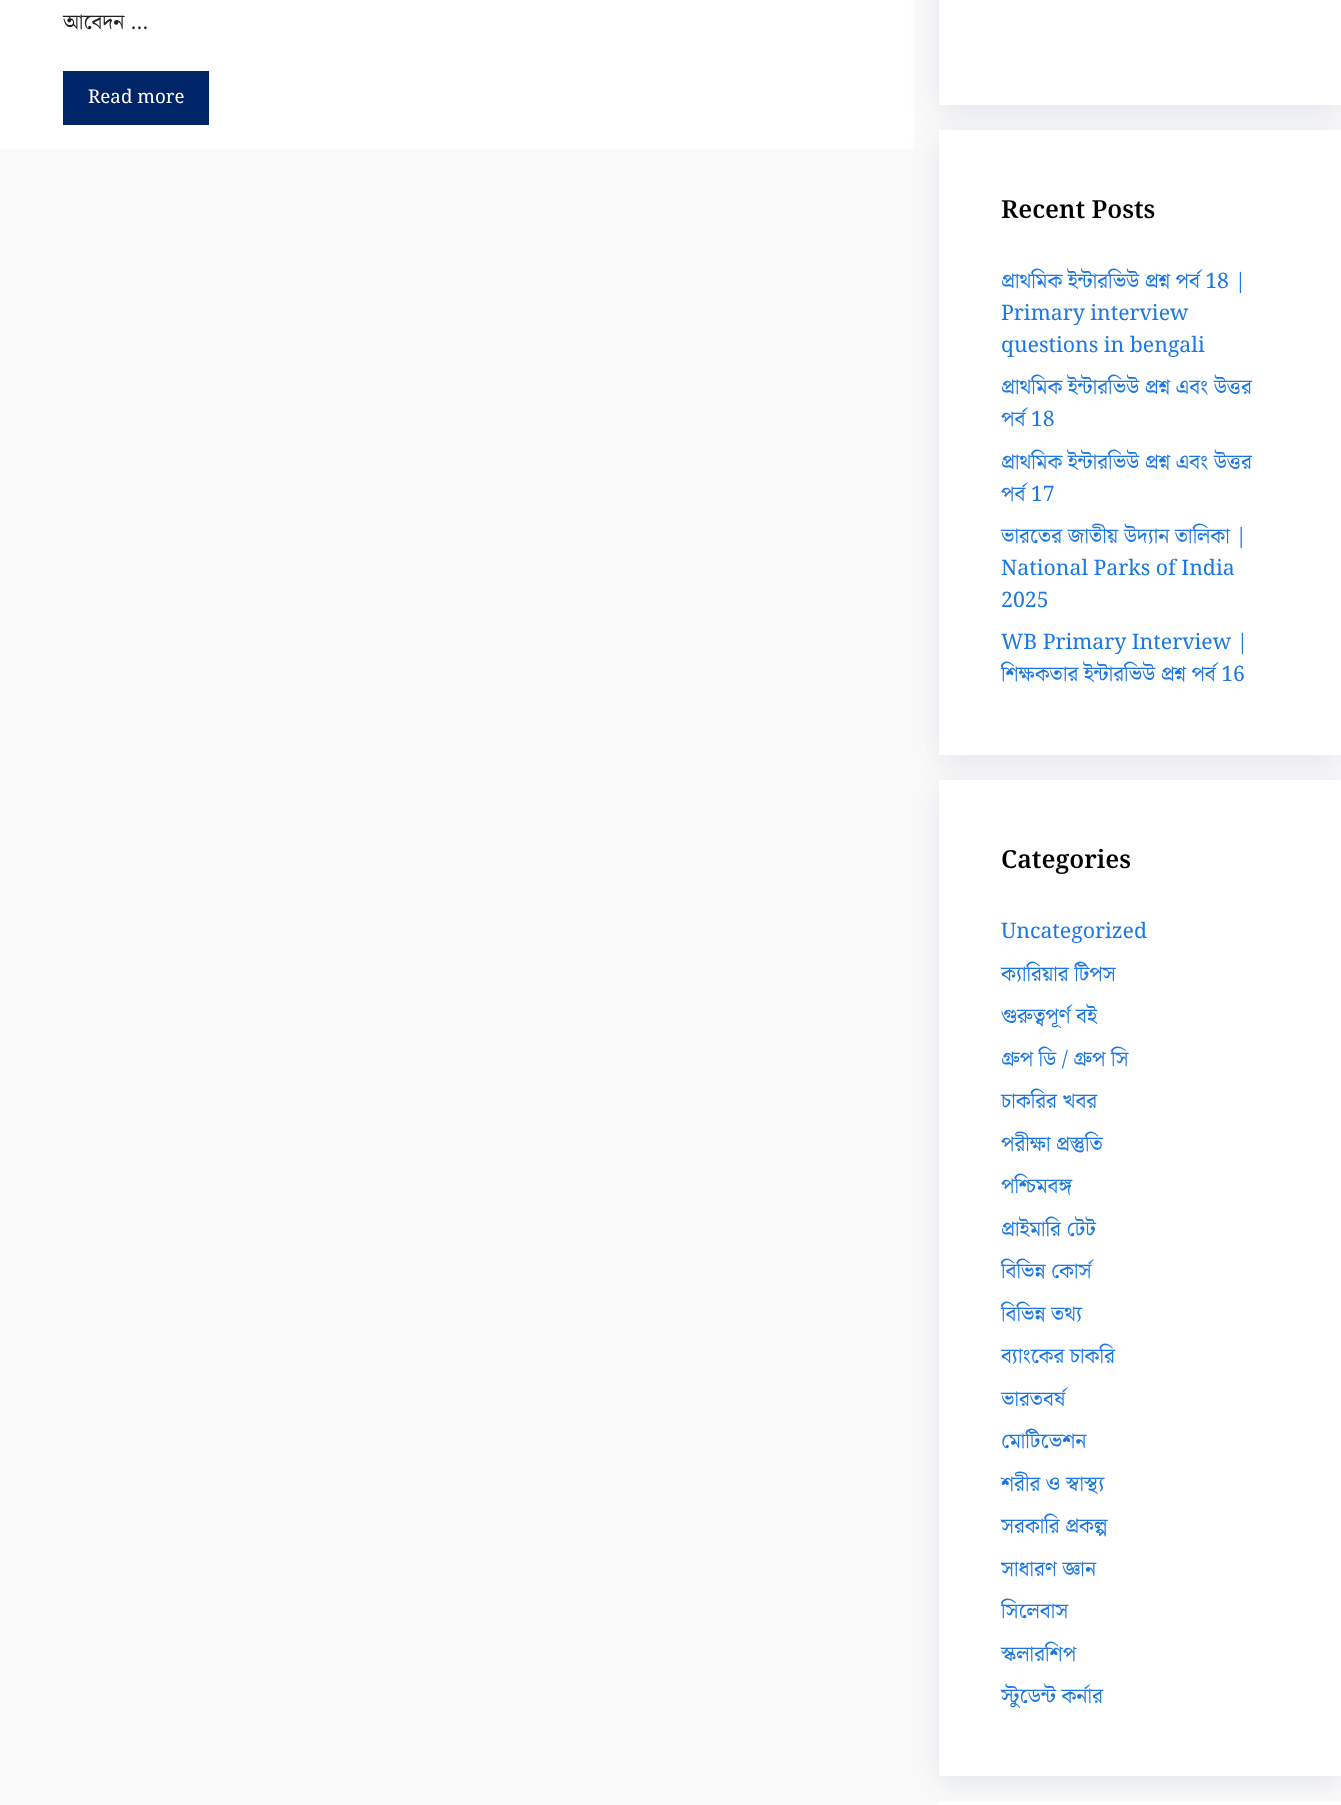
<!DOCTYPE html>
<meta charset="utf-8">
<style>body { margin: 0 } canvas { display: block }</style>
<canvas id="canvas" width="1341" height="1805"></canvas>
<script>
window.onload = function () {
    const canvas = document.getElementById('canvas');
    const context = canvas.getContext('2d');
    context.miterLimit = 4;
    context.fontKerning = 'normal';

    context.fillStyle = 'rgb(250, 250, 250)';
    context.fillRect(0, 0, 1341, 1805);
    context.fillStyle = 'rgb(255, 255, 255)';
    context.fillRect(0, 0, 914, 149);
    context.fillStyle = 'rgb(0, 36, 104)';
    context.fillRect(63, 71, 146, 54);
    context.fillStyle = 'rgba(23, 43, 99, 0.1)';
    context.filter = 'blur(15.5px)';
    context.beginPath();
    context.rect(939, -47, 402, 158);
    context.fill();
    context.filter = 'none';
    context.fillStyle = 'rgb(255, 255, 255)';
    context.fillRect(939, 0, 402, 105);
    context.fillStyle = 'rgba(23, 43, 99, 0.1)';
    context.filter = 'blur(15.5px)';
    context.beginPath();
    context.rect(939, 136, 402, 625);
    context.fill();
    context.filter = 'none';
    context.fillStyle = 'rgb(255, 255, 255)';
    context.fillRect(939, 130, 402, 625);
    context.fillStyle = 'rgba(23, 43, 99, 0.1)';
    context.filter = 'blur(15.5px)';
    context.beginPath();
    context.rect(939, 786, 402, 997);
    context.fill();
    context.filter = 'none';
    context.fillStyle = 'rgb(255, 255, 255)';
    context.fillRect(939, 780, 402, 996);
    context.fillRect(939, 1801, 402, 4);
    context.font = '21.25px Noto Serif Bengali';
    context.fillStyle = 'rgb(33, 33, 33)';
    context.fillText('আবেদন …', 63, 29);
    context.font = '18.75px Noto Serif Bengali';
    context.fillStyle = 'rgb(255, 255, 255)';
    context.fillText('Read more', 88, 103);
    context.font = '600 25px Noto Serif Bengali';
    context.fillStyle = 'rgb(0, 0, 0)';
    context.fillText('Recent Posts', 1001, 218);
    context.font = '21.25px Noto Serif Bengali';
    context.fillStyle = 'rgb(27, 120, 226)';
    context.fillText('প্রাথমিক ইন্টারভিউ প্রশ্ন পর্ব 18 |', 1001, 288);
    context.fillText('Primary interview', 1001, 320);
    context.fillText('questions in bengali', 1001, 352);
    context.fillText('প্রাথমিক ইন্টারভিউ প্রশ্ন এবং উত্তর', 1001, 394);
    context.fillText('পর্ব 18', 1001, 426);
    context.fillText('প্রাথমিক ইন্টারভিউ প্রশ্ন এবং উত্তর', 1001, 469);
    context.fillText('পর্ব 17', 1001, 501);
    context.fillText('ভারতের জাতীয় উদ্যান তালিকা |', 1001, 543);
    context.fillText('National Parks of India', 1001, 575);
    context.fillText('2025', 1001, 607);
    context.fillText('WB Primary Interview |', 1001, 649);
    context.fillText('শিক্ষকতার ইন্টারভিউ প্রশ্ন পর্ব 16', 1001, 681);
    context.font = '600 25px Noto Serif Bengali';
    context.fillStyle = 'rgb(0, 0, 0)';
    context.fillText('Categories', 1001, 868);
    context.font = '21.25px Noto Serif Bengali';
    context.fillStyle = 'rgb(27, 120, 226)';
    context.fillText('Uncategorized', 1001, 938);
    context.fillText('ক্যারিয়ার টিপস', 1001, 981);
    context.fillText('গুরুত্বপূর্ণ বই', 1001, 1023);
    context.fillText('গ্রুপ ডি / গ্রুপ সি', 1001, 1066);
    context.fillText('চাকরির খবর', 1001, 1108);
    context.fillText('পরীক্ষা প্রস্তুতি', 1001, 1151);
    context.fillText('পশ্চিমবঙ্গ', 1001, 1193);
    context.fillText('প্রাইমারি টেট', 1001, 1236);
    context.fillText('বিভিন্ন কোর্স', 1001, 1278);
    context.fillText('বিভিন্ন তথ্য', 1001, 1321);
    context.fillText('ব্যাংকের চাকরি', 1001, 1363);
    context.fillText('ভারতবর্ষ', 1001, 1406);
    context.fillText('মোটিভেশন', 1001, 1448);
    context.fillText('শরীর ও স্বাস্থ্য', 1001, 1491);
    context.fillText('সরকারি প্রকল্প', 1001, 1533);
    context.fillText('সাধারণ জ্ঞান', 1001, 1576);
    context.fillText('সিলেবাস', 1001, 1618);
    context.fillText('স্কলারশিপ', 1001, 1661);
    context.fillText('স্টুডেন্ট কর্নার', 1001, 1703);
};
</script>
